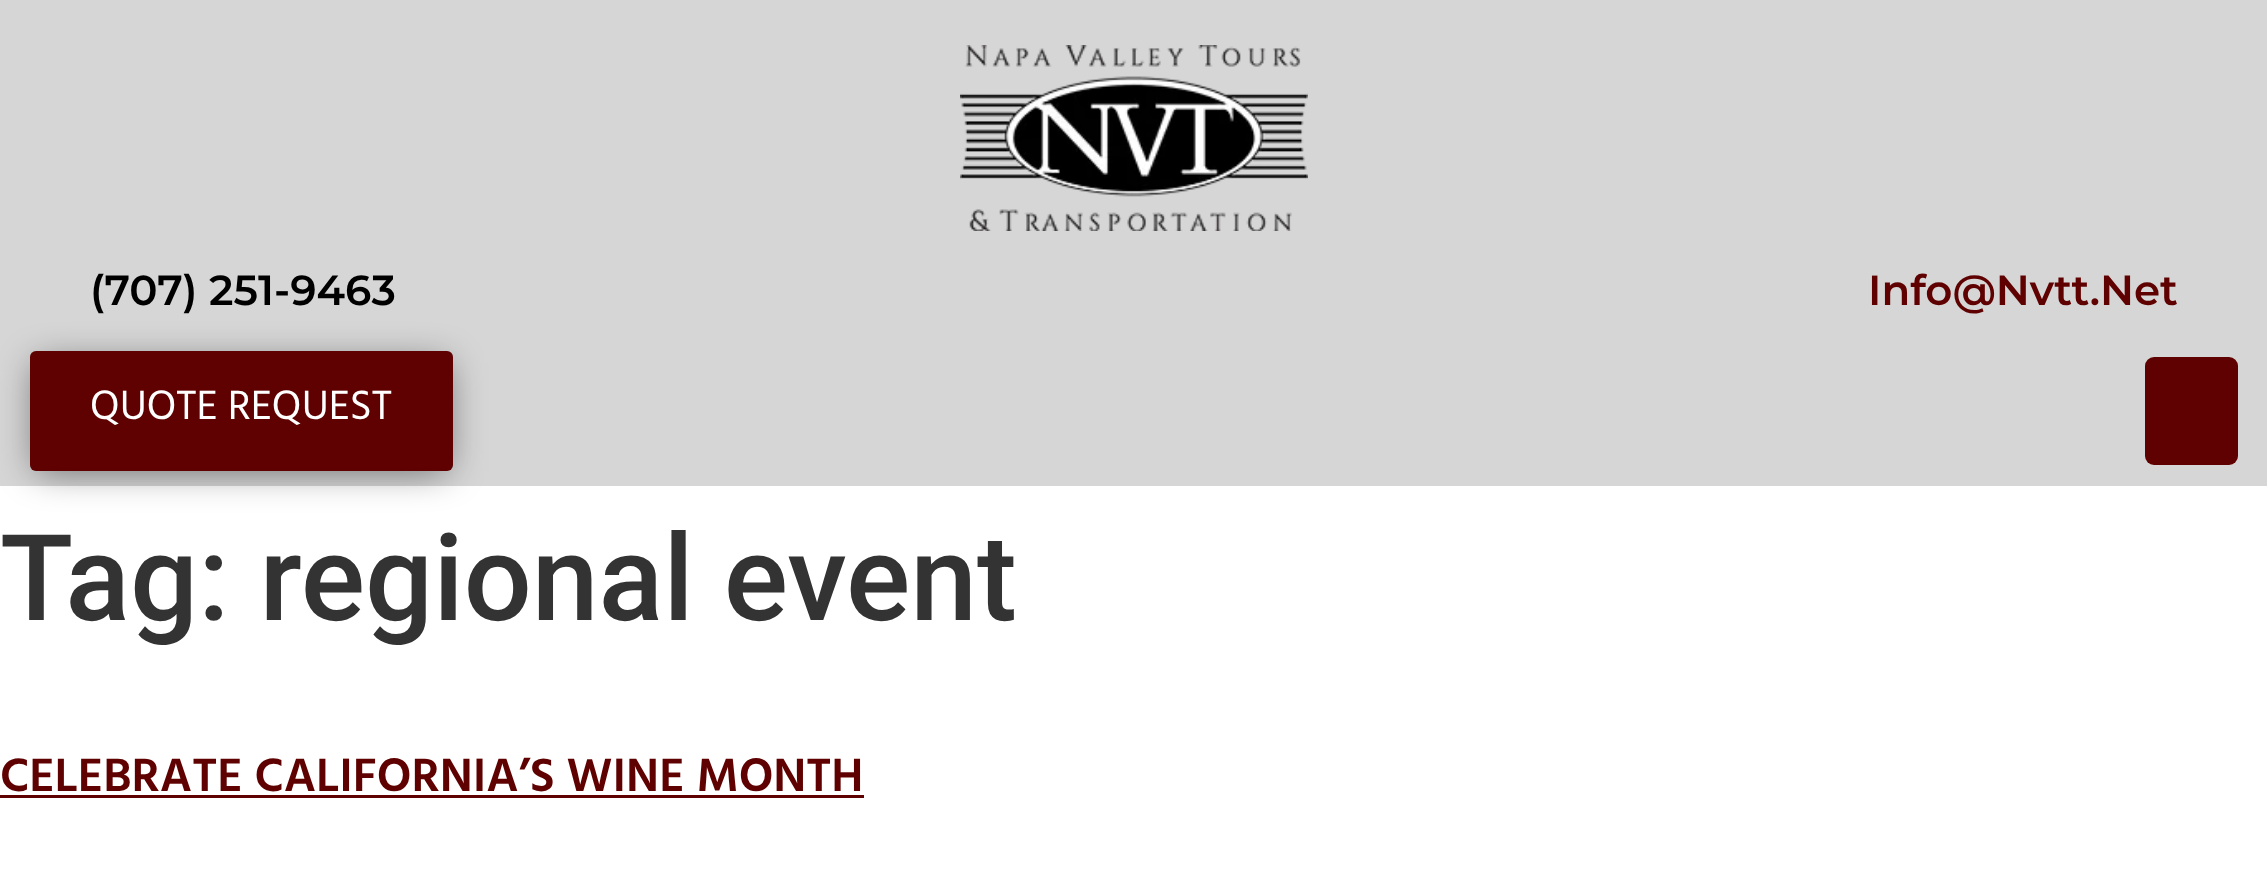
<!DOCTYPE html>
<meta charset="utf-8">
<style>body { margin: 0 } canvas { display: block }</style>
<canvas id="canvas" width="2267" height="884"></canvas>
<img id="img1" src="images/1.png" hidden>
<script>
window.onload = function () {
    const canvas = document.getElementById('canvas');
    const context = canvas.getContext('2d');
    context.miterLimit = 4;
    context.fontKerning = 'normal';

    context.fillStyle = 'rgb(255, 255, 255)';
    context.fillRect(0, 0, 2267, 884);
    context.fillStyle = 'rgb(214, 214, 214)';
    context.fillRect(0, 0, 2267, 486);
    context.drawImage(document.getElementById('img1'), 960, 45, 348, 186);
    context.fillStyle = 'rgba(0, 0, 0, 0.5)';
    context.filter = 'blur(18px)';
    context.beginPath();
    context.rect(36, 363, 411, 108);
    context.fill();
    context.filter = 'none';
    context.fillStyle = 'rgb(94, 1, 0)';
    context.beginPath();
    context.roundRect(30, 351, 423, 120, 6);
    context.fill();
    context.beginPath();
    context.roundRect(2145, 357, 93, 108, 9);
    context.fill();
    context.fillRect(0, 795, 864, 3);
    context.font = '600 42px Montserrat';
    context.fillStyle = 'rgb(0, 0, 0)';
    context.fillText('(707) 251-9463', 90, 305);
    context.fillStyle = 'rgb(94, 1, 0)';
    context.fillText('Info@Nvtt.Net', 1868, 305);
    context.font = '42px Hind';
    context.fillStyle = 'rgb(255, 255, 255)';
    context.fillText('QUOTE REQUEST', 90, 419);
    context.font = '500 120px Roboto';
    context.fillStyle = 'rgb(51, 51, 51)';
    context.fillText('Tag: regional event', 0, 620);
    context.font = '600 48px Hind';
    context.fillStyle = 'rgb(94, 1, 0)';
    context.fillText('CELEBRATE CALIFORNIA’S WINE MONTH', 0, 791);
};
</script>
